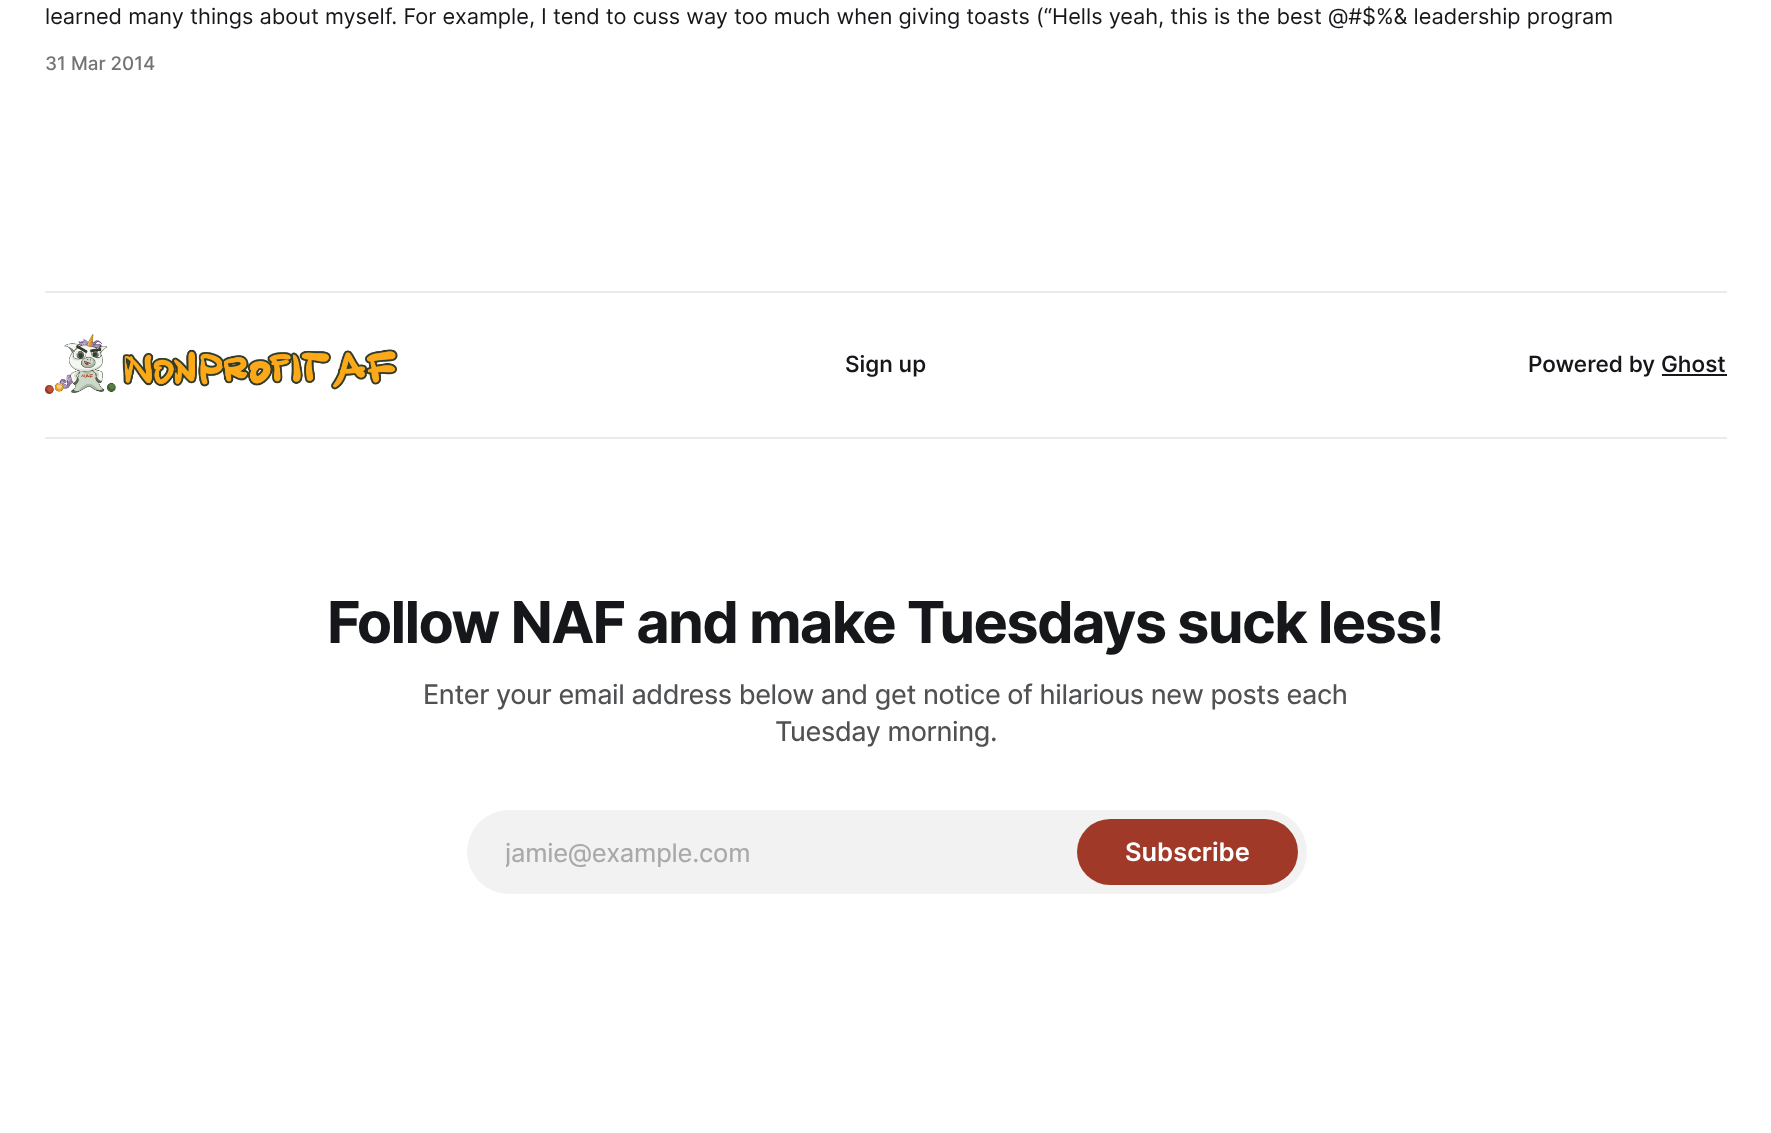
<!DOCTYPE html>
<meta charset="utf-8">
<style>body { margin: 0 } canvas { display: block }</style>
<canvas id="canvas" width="1771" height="1133"></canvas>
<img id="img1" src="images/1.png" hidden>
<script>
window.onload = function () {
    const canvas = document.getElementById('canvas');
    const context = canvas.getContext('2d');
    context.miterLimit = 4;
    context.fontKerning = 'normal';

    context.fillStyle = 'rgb(255, 255, 255)';
    context.fillRect(0, 0, 1771, 1133);
    context.fillStyle = 'rgb(235, 235, 235)';
    context.fillRect(45, 291, 1682, 2);
    context.fillRect(45, 437, 1682, 2);
    context.drawImage(document.getElementById('img1'), 45, 334, 353, 60);
    context.fillStyle = 'rgb(21, 23, 26)';
    context.fillRect(1662, 374, 65, 2);
    context.fillStyle = 'rgb(242, 242, 242)';
    context.beginPath();
    context.roundRect(467, 810, 840, 84, 42);
    context.fill();
    context.fillStyle = 'rgb(160, 57, 39)';
    context.beginPath();
    context.roundRect(1077, 819, 221, 66, 33);
    context.fill();
    context.font = '21.75px Inter';
    context.fillStyle = 'rgb(21, 23, 26)';
    context.fillText('learned many things about myself. For example, I tend to cuss way too much when giving toasts (“Hells yeah, this is the best @#$%& leadership program', 45, 24);
    context.font = '500 18.75px "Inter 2"';
    context.fillStyle = 'rgb(115, 115, 115)';
    context.fillText('31 Mar 2014', 45, 70);
    context.font = '500 22.5px Inter';
    context.fillStyle = 'rgb(21, 23, 26)';
    context.fillText('Sign up', 845, 372);
    context.fillText('Powered by Ghost', 1528, 372);
    context.letterSpacing = '-1.75px';
    context.font = 'bold 57.8px Inter';
    context.fillText('Follow NAF and make Tuesdays suck less!', 327, 643);
    context.letterSpacing = '-0.38px';
    context.font = '27px "Inter 2"';
    context.fillStyle = 'rgb(80, 81, 83)';
    context.fillText('Enter your email address below and get notice of hilarious new posts each', 423, 704);
    context.fillText('Tuesday morning.', 775, 741);
    context.save();
    context.beginPath();
    context.rect(506, 837, 762, 30);
    context.clip();
    context.letterSpacing = '-0.25px';
    context.font = '25.5px "Inter 2"';
    context.fillStyle = 'rgb(169, 169, 169)';
    context.fillText('jamie@example.com', 505, 862);
    context.restore();
    context.letterSpacing = '0px';
    context.font = '600 25.5px Inter';
    context.fillStyle = 'rgb(255, 255, 255)';
    context.fillText('Subscribe', 1125, 861);
};
</script>
